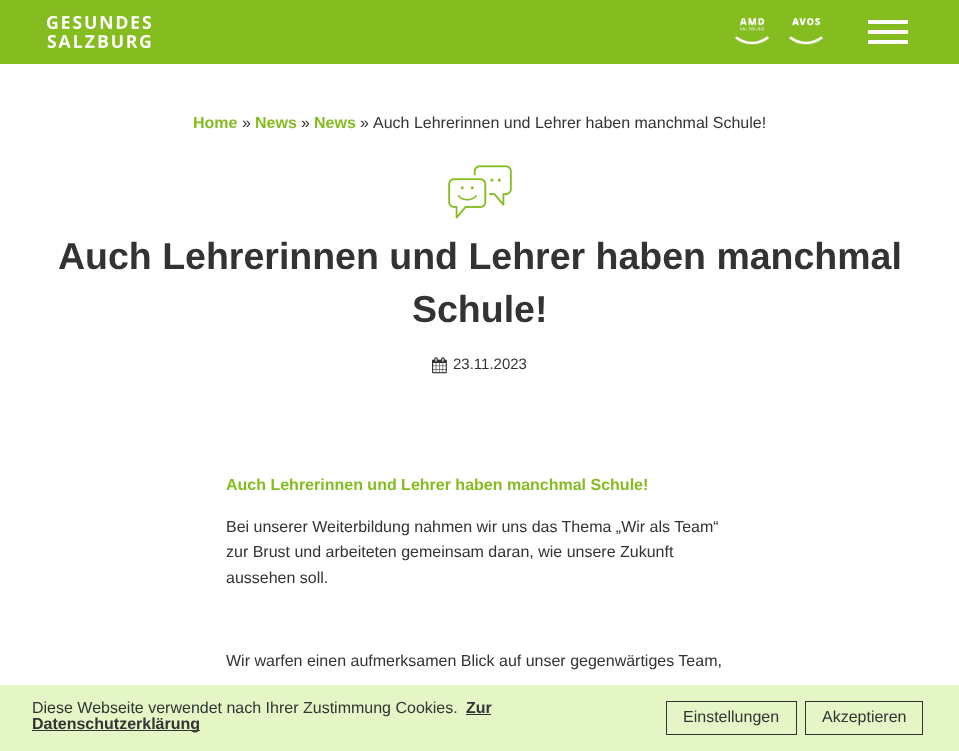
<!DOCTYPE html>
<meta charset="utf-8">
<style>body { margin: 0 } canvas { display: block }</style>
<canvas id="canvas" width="959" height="751"></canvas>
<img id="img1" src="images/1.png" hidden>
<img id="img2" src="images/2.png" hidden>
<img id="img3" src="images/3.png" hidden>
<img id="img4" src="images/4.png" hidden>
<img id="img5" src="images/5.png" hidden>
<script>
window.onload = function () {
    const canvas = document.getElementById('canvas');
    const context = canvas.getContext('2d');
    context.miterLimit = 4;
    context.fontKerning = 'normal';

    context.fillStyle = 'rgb(255, 255, 255)';
    context.fillRect(0, 0, 959, 751);
    context.fillStyle = 'rgb(133, 188, 32)';
    context.fillRect(0, 0, 959, 64);
    context.drawImage(document.getElementById('img1'), 47, 15, 104, 33);
    context.fillStyle = 'rgb(255, 255, 255)';
    context.fillRect(868, 20, 40, 4);
    context.fillRect(868, 40, 40, 4);
    context.fillRect(868, 30, 40, 4);
    context.drawImage(document.getElementById('img2'), 735, 18, 34, 27);
    context.drawImage(document.getElementById('img3'), 789, 18, 34, 27);
    context.drawImage(document.getElementById('img4'), 448, 165, 64, 54);
    context.drawImage(document.getElementById('img5'), 432, 357, 15, 17);
    context.fillStyle = 'rgb(228, 246, 198)';
    context.fillRect(0, 685, 959, 66);
    context.fillStyle = 'rgb(51, 51, 51)';
    context.fillRect(466, 714, 25, 1);
    context.fillRect(32, 730, 168, 1);
    context.strokeStyle = 'rgb(51, 51, 51)';
    context.strokeRect(666.5, 701.5, 130, 33);
    context.strokeRect(805.5, 701.5, 117, 33);
    context.font = 'bold 16px Liberation Sans';
    context.fillStyle = 'rgb(133, 188, 33)';
    context.fillText('Home', 193, 128);
    context.font = '16px Liberation Sans';
    context.fillStyle = 'rgb(51, 51, 51)';
    context.fillText('»', 242, 128);
    context.font = 'bold 16px Liberation Sans';
    context.fillStyle = 'rgb(133, 188, 33)';
    context.fillText('News', 255, 128);
    context.font = '16px Liberation Sans';
    context.fillStyle = 'rgb(51, 51, 51)';
    context.fillText('»', 301, 128);
    context.font = 'bold 16px Liberation Sans';
    context.fillStyle = 'rgb(133, 188, 33)';
    context.fillText('News', 314, 128);
    context.font = '16px Liberation Sans';
    context.fillStyle = 'rgb(51, 51, 51)';
    context.fillText('»', 360, 128);
    context.fillText('Auch Lehrerinnen und Lehrer haben manchmal Schule!', 373, 128);
    context.font = 'bold 37.5px Liberation Sans';
    context.fillText('Auch Lehrerinnen und Lehrer haben manchmal', 58, 269);
    context.fillText('Schule!', 412, 322);
    context.font = '15px Liberation Sans';
    context.fillText('23.11.2023', 453, 369);
    context.font = 'bold 16px Liberation Sans';
    context.fillStyle = 'rgb(133, 188, 33)';
    context.fillText('Auch Lehrerinnen und Lehrer haben manchmal Schule!', 226, 490);
    context.font = '16px Liberation Sans';
    context.fillStyle = 'rgb(51, 51, 51)';
    context.fillText('Bei unserer Weiterbildung nahmen wir uns das Thema „Wir als Team“', 226, 532);
    context.fillText('zur Brust und arbeiteten gemeinsam daran, wie unsere Zukunft', 226, 557);
    context.fillText('aussehen soll.', 226, 583);
    context.fillText('Wir warfen einen aufmerksamen Blick auf unser gegenwärtiges Team,', 226, 666);
    context.fillText('Diese Webseite verwendet nach Ihrer Zustimmung Cookies.', 32, 713);
    context.font = 'bold 16px Liberation Sans';
    context.fillText('Zur', 466, 713);
    context.fillText('Datenschutzerklärung', 32, 729);
    context.font = '16px Liberation Sans';
    context.fillText('Einstellungen', 683, 722);
    context.fillText('Akzeptieren', 822, 722);
};
</script>
